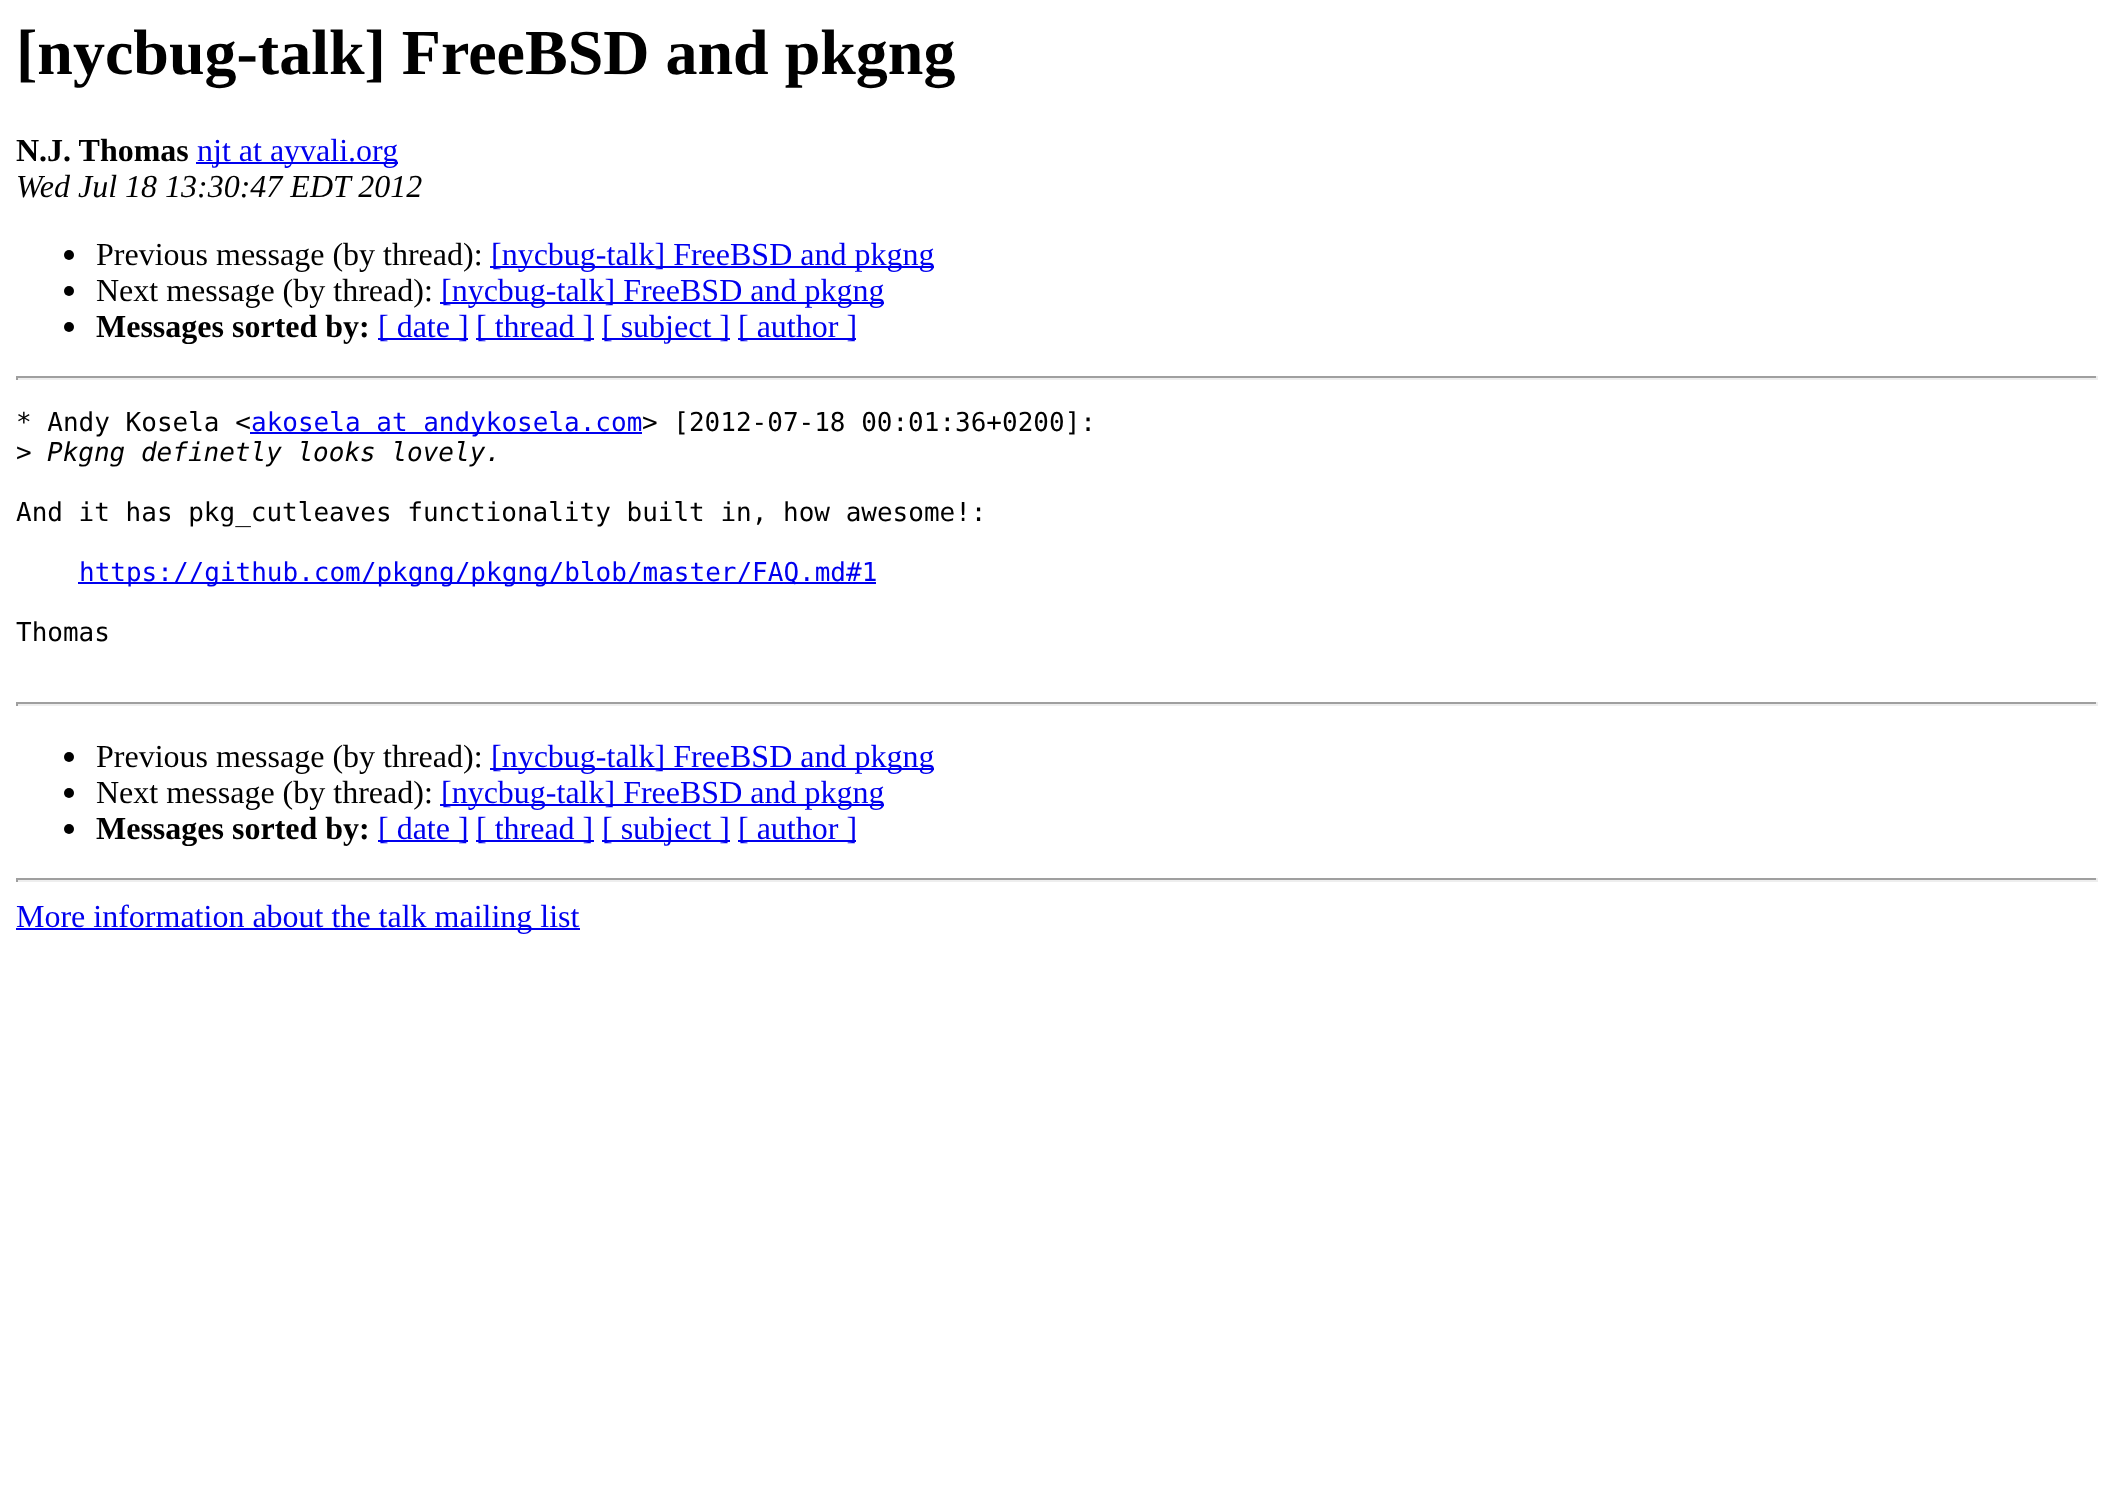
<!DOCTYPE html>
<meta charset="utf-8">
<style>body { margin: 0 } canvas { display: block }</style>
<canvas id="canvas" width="2113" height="1506"></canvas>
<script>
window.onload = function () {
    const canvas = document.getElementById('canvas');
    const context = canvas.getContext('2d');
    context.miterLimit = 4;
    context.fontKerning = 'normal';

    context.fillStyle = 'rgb(255, 255, 255)';
    context.fillRect(0, 0, 2113, 1506);
    context.fillStyle = 'rgb(0, 0, 238)';
    context.fillRect(196, 162, 202, 2);
    context.fillStyle = 'rgb(0, 0, 0)';
    context.beginPath();
    context.arc(69, 255, 5, 0, 2 * Math.PI);
    context.fill();
    context.fillStyle = 'rgb(0, 0, 238)';
    context.fillRect(490, 266, 444, 2);
    context.fillStyle = 'rgb(0, 0, 0)';
    context.beginPath();
    context.arc(69, 291, 5, 0, 2 * Math.PI);
    context.fill();
    context.fillStyle = 'rgb(0, 0, 238)';
    context.fillRect(440, 302, 444, 2);
    context.fillStyle = 'rgb(0, 0, 0)';
    context.beginPath();
    context.arc(69, 327, 5, 0, 2 * Math.PI);
    context.fill();
    context.fillStyle = 'rgb(0, 0, 238)';
    context.fillRect(378, 338, 90, 2);
    context.fillRect(476, 338, 118, 2);
    context.fillRect(602, 338, 128, 2);
    context.fillRect(738, 338, 118, 2);
    context.fillStyle = 'rgb(159, 159, 159)';
    context.fillRect(16, 376, 2082, 2);
    context.fillStyle = 'rgb(238, 238, 238)';
    context.fillRect(2096, 376, 2, 4);
    context.fillRect(16, 378, 2082, 2);
    context.fillStyle = 'rgb(159, 159, 159)';
    context.fillRect(16, 376, 2, 4);
    context.fillStyle = 'rgb(0, 0, 238)';
    context.fillRect(250, 432, 392, 2);
    context.fillRect(78, 582, 798, 2);
    context.fillStyle = 'rgb(159, 159, 159)';
    context.fillRect(16, 702, 2082, 2);
    context.fillStyle = 'rgb(238, 238, 238)';
    context.fillRect(2096, 702, 2, 4);
    context.fillRect(16, 704, 2082, 2);
    context.fillStyle = 'rgb(159, 159, 159)';
    context.fillRect(16, 702, 2, 4);
    context.fillStyle = 'rgb(0, 0, 0)';
    context.beginPath();
    context.arc(69, 757, 5, 0, 2 * Math.PI);
    context.fill();
    context.fillStyle = 'rgb(0, 0, 238)';
    context.fillRect(490, 768, 444, 2);
    context.fillStyle = 'rgb(0, 0, 0)';
    context.beginPath();
    context.arc(69, 793, 5, 0, 2 * Math.PI);
    context.fill();
    context.fillStyle = 'rgb(0, 0, 238)';
    context.fillRect(440, 804, 444, 2);
    context.fillStyle = 'rgb(0, 0, 0)';
    context.beginPath();
    context.arc(69, 829, 5, 0, 2 * Math.PI);
    context.fill();
    context.fillStyle = 'rgb(0, 0, 238)';
    context.fillRect(378, 840, 90, 2);
    context.fillRect(476, 840, 118, 2);
    context.fillRect(602, 840, 128, 2);
    context.fillRect(738, 840, 118, 2);
    context.fillStyle = 'rgb(159, 159, 159)';
    context.fillRect(16, 878, 2082, 2);
    context.fillStyle = 'rgb(238, 238, 238)';
    context.fillRect(2096, 878, 2, 4);
    context.fillRect(16, 880, 2082, 2);
    context.fillStyle = 'rgb(159, 159, 159)';
    context.fillRect(16, 878, 2, 4);
    context.fillStyle = 'rgb(0, 0, 238)';
    context.fillRect(16, 928, 564, 2);
    context.font = 'bold 64px Liberation Serif';
    context.fillStyle = 'rgb(0, 0, 0)';
    context.fillText('[nycbug-talk] FreeBSD and pkgng', 16, 74);
    context.font = 'bold 32px Liberation Serif';
    context.fillText('N.J. Thomas', 16, 161);
    context.font = '32px Liberation Serif';
    context.fillStyle = 'rgb(0, 0, 238)';
    context.fillText('njt at ayvali.org', 197, 161);
    context.font = 'italic 32px Liberation Serif';
    context.fillStyle = 'rgb(0, 0, 0)';
    context.fillText('Wed Jul 18 13:30:47 EDT 2012', 16, 197);
    context.font = '32px Liberation Serif';
    context.fillText('Previous message (by thread):', 96, 265);
    context.fillStyle = 'rgb(0, 0, 238)';
    context.fillText('[nycbug-talk] FreeBSD and pkgng', 491, 265);
    context.fillStyle = 'rgb(0, 0, 0)';
    context.fillText('Next message (by thread):', 96, 301);
    context.fillStyle = 'rgb(0, 0, 238)';
    context.fillText('[nycbug-talk] FreeBSD and pkgng', 441, 301);
    context.font = 'bold 32px Liberation Serif';
    context.fillStyle = 'rgb(0, 0, 0)';
    context.fillText('Messages sorted by:', 96, 337);
    context.font = '32px Liberation Serif';
    context.fillStyle = 'rgb(0, 0, 238)';
    context.fillText('[ date ]', 378, 337);
    context.fillText('[ thread ]', 476, 337);
    context.fillText('[ subject ]', 602, 337);
    context.fillText('[ author ]', 738, 337);
    context.font = '26px DejaVu Sans Mono';
    context.fillStyle = 'rgb(0, 0, 0)';
    context.fillText('* Andy Kosela <', 16, 431);
    context.fillStyle = 'rgb(0, 0, 238)';
    context.fillText('akosela at andykosela.com', 251, 431);
    context.fillStyle = 'rgb(0, 0, 0)';
    context.fillText('> [2012-07-18 00:01:36+0200]:', 642, 431);
    context.fillText('>', 16, 461);
    context.font = 'italic 26px DejaVu Sans Mono';
    context.fillText('Pkgng definetly looks lovely.', 47, 461);
    context.font = '26px DejaVu Sans Mono';
    context.fillText('And it has pkg_cutleaves functionality built in, how awesome!:', 16, 521);
    context.fillStyle = 'rgb(0, 0, 238)';
    context.fillText('https://github.com/pkgng/pkgng/blob/master/FAQ.md#1', 79, 581);
    context.fillStyle = 'rgb(0, 0, 0)';
    context.fillText('Thomas', 16, 641);
    context.font = '32px Liberation Serif';
    context.fillText('Previous message (by thread):', 96, 767);
    context.fillStyle = 'rgb(0, 0, 238)';
    context.fillText('[nycbug-talk] FreeBSD and pkgng', 491, 767);
    context.fillStyle = 'rgb(0, 0, 0)';
    context.fillText('Next message (by thread):', 96, 803);
    context.fillStyle = 'rgb(0, 0, 238)';
    context.fillText('[nycbug-talk] FreeBSD and pkgng', 441, 803);
    context.font = 'bold 32px Liberation Serif';
    context.fillStyle = 'rgb(0, 0, 0)';
    context.fillText('Messages sorted by:', 96, 839);
    context.font = '32px Liberation Serif';
    context.fillStyle = 'rgb(0, 0, 238)';
    context.fillText('[ date ]', 378, 839);
    context.fillText('[ thread ]', 476, 839);
    context.fillText('[ subject ]', 602, 839);
    context.fillText('[ author ]', 738, 839);
    context.fillText('More information about the talk mailing list', 16, 927);
};
</script>
